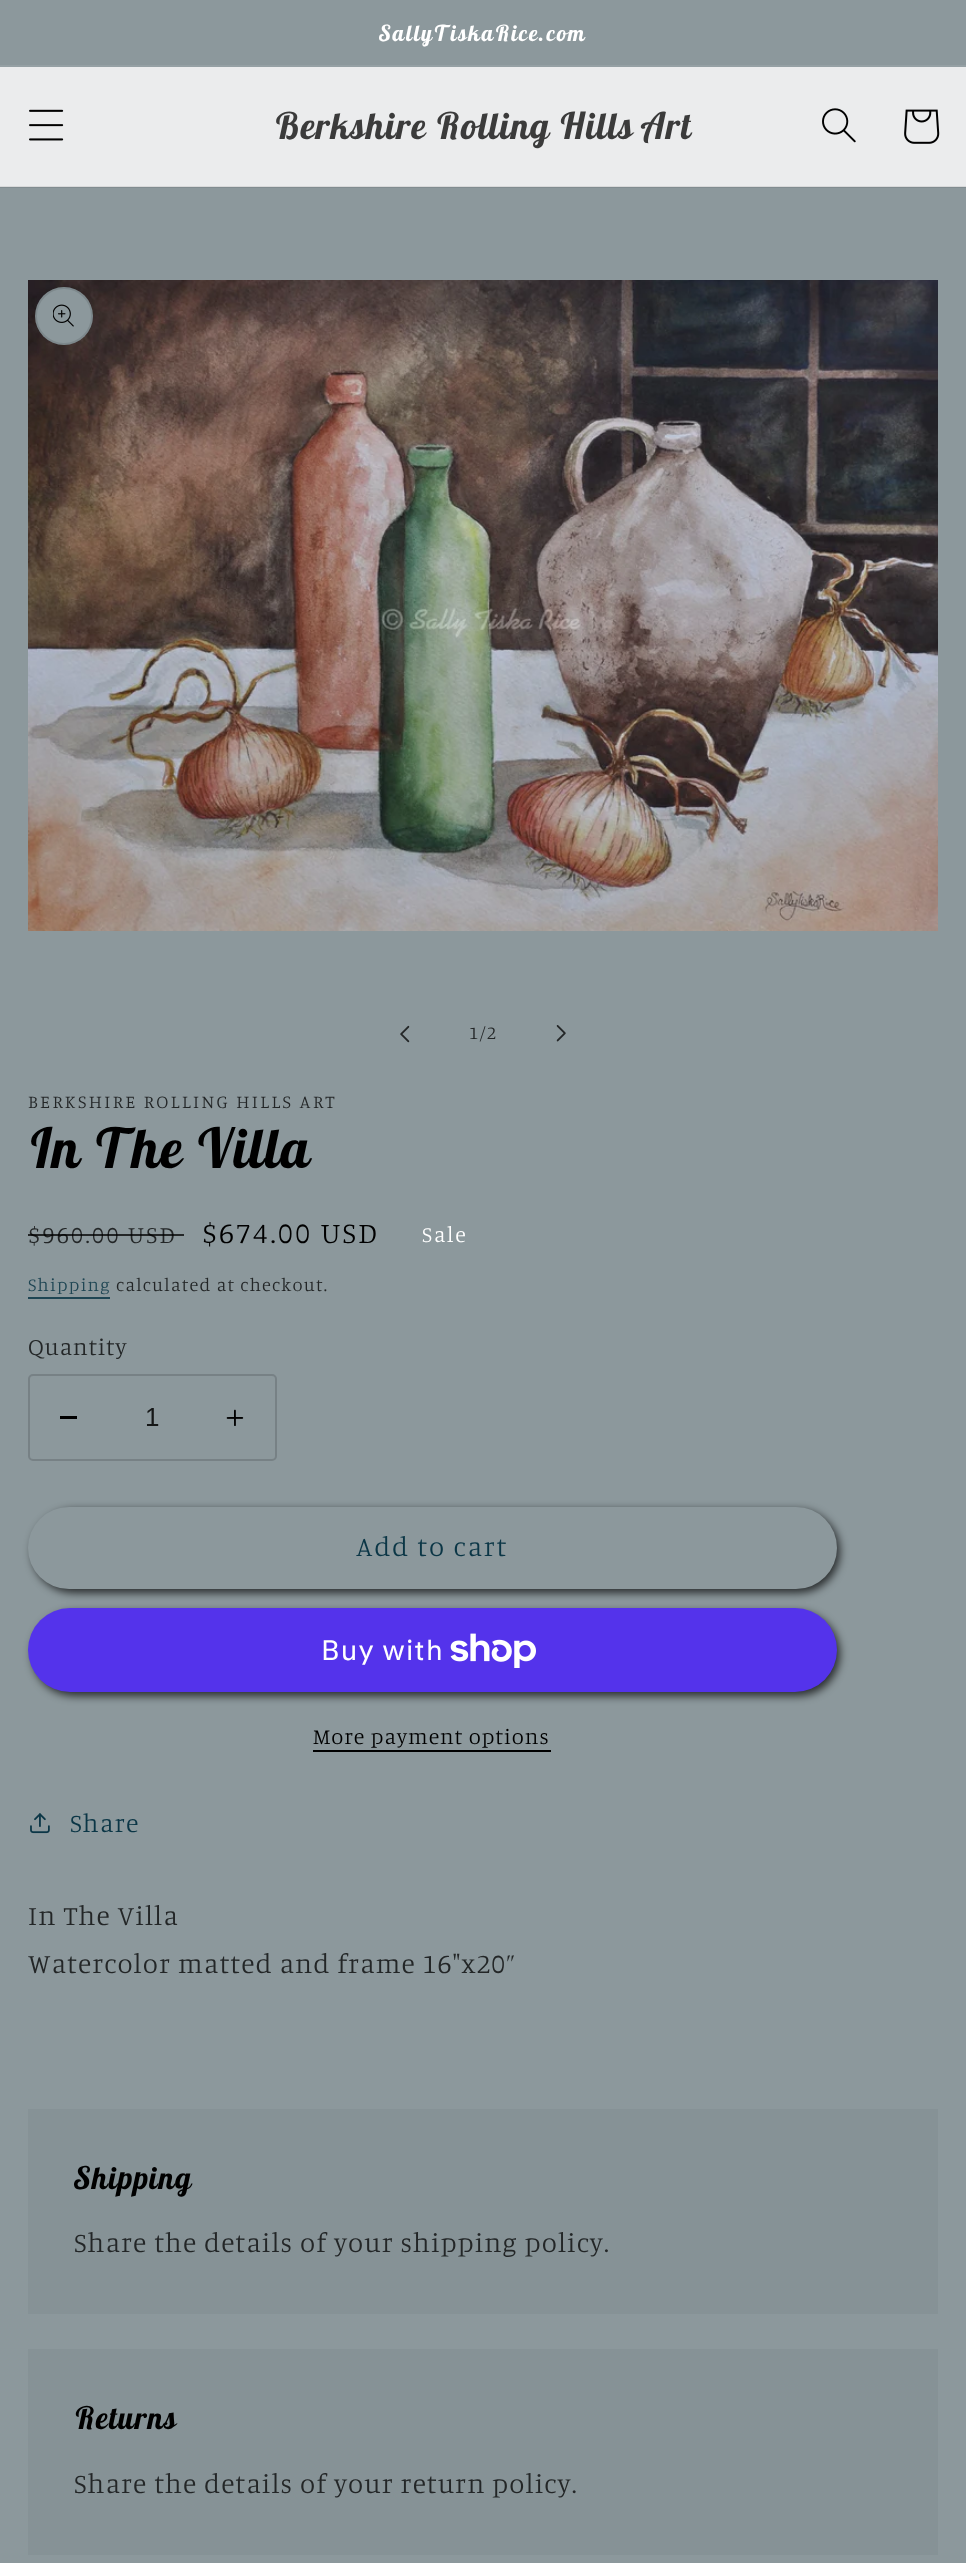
<!DOCTYPE html>
<meta charset="utf-8">
<style>body { margin: 0 } canvas { display: block }</style>
<canvas id="canvas" width="966" height="2563"></canvas>
<img id="img1" src="images/1.png" hidden>
<img id="img2" src="images/2.png" hidden>
<img id="img3" src="images/3.png" hidden>
<img id="img4" src="images/4.png" hidden>
<img id="img5" src="images/5.png" hidden>
<img id="img6" src="images/6.png" hidden>
<img id="img7" src="images/7.png" hidden>
<img id="img8" src="images/8.png" hidden>
<img id="img9" src="images/9.png" hidden>
<img id="img10" src="images/10.png" hidden>
<script>
window.onload = function () {
    const canvas = document.getElementById('canvas');
    const context = canvas.getContext('2d');
    context.miterLimit = 4;
    context.fontKerning = 'none';

    context.fillStyle = 'rgb(140, 152, 156)';
    context.fillRect(0, 0, 966, 2563);
    context.fillStyle = 'rgb(129, 140, 144)';
    context.fillRect(0, 187, 966, 1);
    context.fillStyle = 'rgb(149, 160, 164)';
    context.fillRect(0, 65, 966, 2);
    context.fillStyle = 'rgb(235, 236, 237)';
    context.fillRect(0, 67, 966, 119);
    context.fillStyle = 'rgb(216, 217, 218)';
    context.fillRect(0, 186, 966, 1);
    context.drawImage(document.getElementById('img1'), 29, 109, 35, 32);
    context.drawImage(document.getElementById('img2'), 822, 108, 34, 35);
    context.drawImage(document.getElementById('img3'), 904, 109, 36, 35);
    context.drawImage(document.getElementById('img4'), 28, 280, 910, 651);
    context.fillStyle = 'rgb(140, 152, 156)';
    context.beginPath();
    context.arc(64, 316, 29, 0, 2 * Math.PI);
    context.fill();
    context.beginPath();
    context.arc(64, 316, 28, 0, 2 * Math.PI);
    context.strokeStyle = 'rgba(0, 0, 0, 0.1)';
    context.lineWidth = 2;
    context.stroke();
    context.drawImage(document.getElementById('img5'), 53, 304, 21, 23);
    context.drawImage(document.getElementById('img6'), 400, 1025, 10, 18);
    context.drawImage(document.getElementById('img7'), 556, 1025, 10, 17);
    context.fillStyle = 'rgb(30, 69, 83)';
    context.fillRect(28, 1297, 82, 2);
    context.fillStyle = 'rgb(0, 0, 0)';
    context.fillRect(60, 1416, 17, 3);
    context.drawImage(document.getElementById('img8'), 226, 1409, 18, 17);
    context.beginPath();
    context.roundRect(29, 1375, 247, 85, 4);
    context.strokeStyle = 'rgb(119, 129, 133)';
    context.stroke();
    context.fillStyle = 'rgba(0, 0, 0, 0.7)';
    context.filter = 'blur(4.5px)';
    context.beginPath();
    context.roundRect(32, 1510, 808, 83, 41.5);
    context.fill();
    context.filter = 'none';
    context.fillStyle = 'rgb(140, 152, 156)';
    context.beginPath();
    context.roundRect(28, 1507, 809, 82, 41);
    context.fill();
    context.fillStyle = 'rgba(0, 0, 0, 0.7)';
    context.filter = 'blur(4.5px)';
    context.beginPath();
    context.roundRect(32, 1612, 808, 84, 42);
    context.fill();
    context.filter = 'none';
    context.fillStyle = 'rgb(84, 51, 235)';
    context.beginPath();
    context.roundRect(28, 1608, 809, 84, 42);
    context.fill();
    context.drawImage(document.getElementById('img9'), 450, 1633, 86, 35);
    context.fillStyle = 'rgb(0, 0, 0)';
    context.fillRect(313, 1750, 238, 2);
    context.drawImage(document.getElementById('img10'), 30, 1813, 20, 21);
    context.fillStyle = 'rgb(134, 146, 150)';
    context.fillRect(28, 2109, 910, 205);
    context.fillRect(28, 2349, 910, 206);
    context.letterSpacing = '1.8px';
    context.font = 'italic bold 22px Lobster Two';
    context.fillStyle = 'rgb(255, 255, 255)';
    context.fillText('SallyTiskaRice.com', 379, 41);
    context.letterSpacing = '1.1px';
    context.font = 'italic bold 36.75px Lobster Two';
    context.fillStyle = 'rgb(59, 59, 59)';
    context.fillText('Berkshire Rolling Hills Art', 274, 139);
    context.letterSpacing = '1.25px';
    context.font = '300 18.4px Manuale';
    context.fillStyle = 'rgb(35, 38, 39)';
    context.fillText('1/2', 469, 1039);
    context.letterSpacing = '2.4px';
    context.fillText('BERKSHIRE ROLLING HILLS ART', 28, 1108);
    context.letterSpacing = '1.1px';
    context.font = 'italic bold 55px Lobster Two';
    context.fillStyle = 'rgb(0, 0, 0)';
    context.fillText('In The Villa', 28, 1168);
    context.letterSpacing = '2.4px';
    context.font = '300 24px Manuale';
    context.fillStyle = 'rgb(35, 38, 39)';
    context.fillText('$960.00 USD', 28, 1243);
    context.fillStyle = 'rgba(0, 0, 0, 0.75)';
    context.fillRect(28, 1234, 156, 2);
    context.font = '300 29.5px Manuale';
    context.fillStyle = 'rgb(0, 0, 0)';
    context.fillText('$674.00 USD', 202, 1243);
    context.letterSpacing = '1.8px';
    context.font = '300 22px Manuale';
    context.fillStyle = 'rgb(255, 255, 255)';
    context.fillText('Sale', 422, 1242);
    context.letterSpacing = '1.25px';
    context.font = '300 18.4px Manuale';
    context.fillStyle = 'rgb(30, 69, 83)';
    context.fillText('Shipping', 28, 1291);
    context.fillStyle = 'rgb(35, 38, 39)';
    context.fillText('calculated at checkout.', 116, 1291);
    context.letterSpacing = '0.75px';
    context.font = '300 24px Manuale';
    context.fillText('Quantity', 28, 1355);
    context.letterSpacing = '0px';
    context.font = '26px Liberation Sans';
    context.fillStyle = 'rgb(21, 23, 23)';
    context.fillText('1', 145, 1426);
    context.letterSpacing = '1.8px';
    context.font = '300 27.6px Manuale';
    context.fillStyle = 'rgb(11, 54, 70)';
    context.fillText('Add to cart', 356, 1556);
    context.letterSpacing = '1.1px';
    context.font = '28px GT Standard';
    context.fillStyle = 'rgb(255, 255, 255)';
    context.fillText('Buy with', 321, 1660);
    context.letterSpacing = '0.9px';
    context.font = '300 22px Manuale';
    context.fillStyle = 'rgb(0, 0, 0)';
    context.fillText('More payment options', 313, 1744);
    context.letterSpacing = '1.1px';
    context.font = '300 26px Manuale';
    context.fillStyle = 'rgb(11, 54, 70)';
    context.fillText('Share', 70, 1832);
    context.font = '300 27.6px Manuale';
    context.fillStyle = 'rgb(35, 38, 39)';
    context.fillText('In The Villa', 28, 1925);
    context.fillText('Watercolor matted and frame 16"x20”', 28, 1973);
    context.font = 'italic bold 31px Lobster Two';
    context.fillStyle = 'rgb(0, 0, 0)';
    context.fillText('Shipping', 74, 2189);
    context.font = '300 27.6px Manuale';
    context.fillStyle = 'rgb(35, 38, 39)';
    context.fillText('Share the details of your shipping policy.', 74, 2252);
    context.font = 'italic bold 31px Lobster Two';
    context.fillStyle = 'rgb(0, 0, 0)';
    context.fillText('Returns', 74, 2429);
    context.font = '300 27.6px Manuale';
    context.fillStyle = 'rgb(35, 38, 39)';
    context.fillText('Share the details of your return policy.', 74, 2493);
};
</script>
